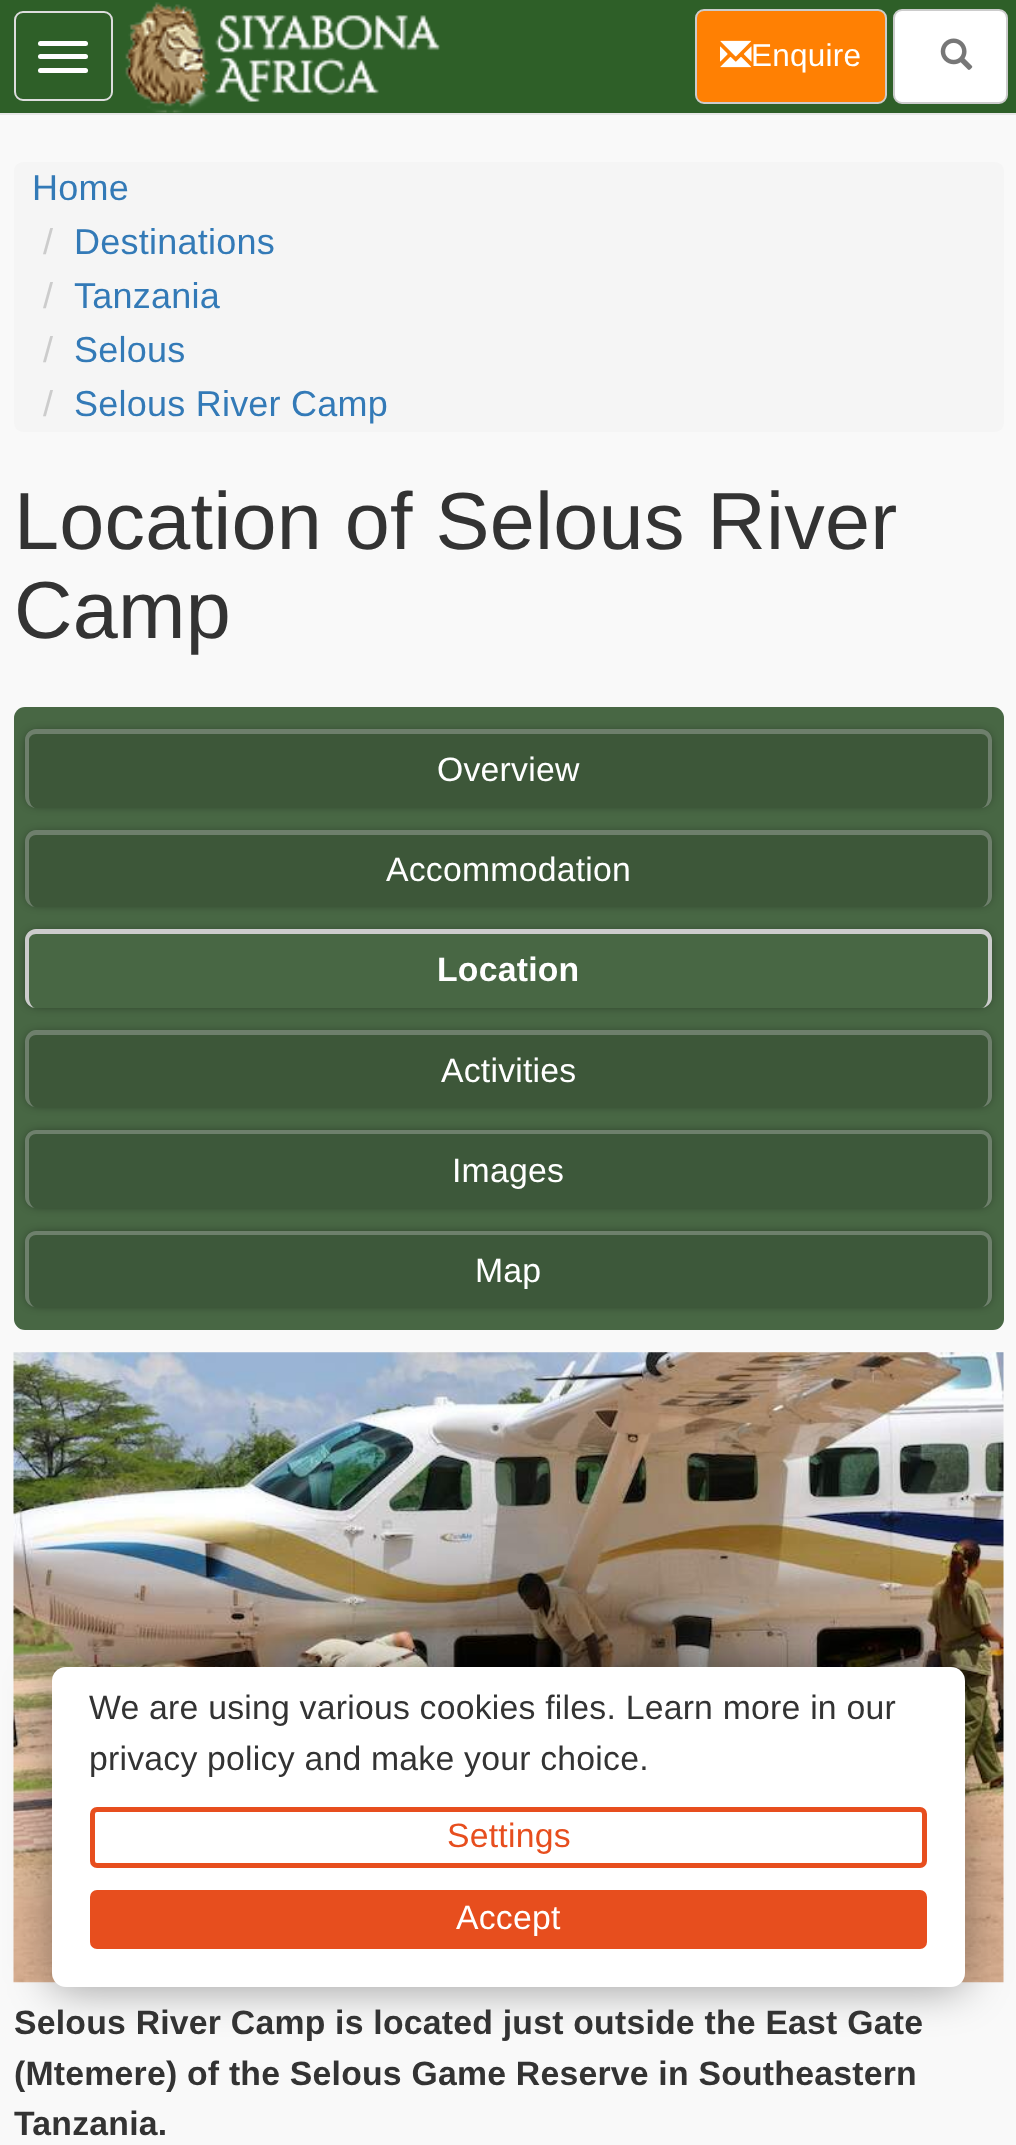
<!DOCTYPE html>
<meta charset="utf-8">
<style>body { margin: 0 } canvas { display: block }</style>
<canvas id="canvas" width="1016" height="2145"></canvas>
<img id="img1" src="images/1.png" hidden>
<img id="img2" src="images/2.png" hidden>
<img id="img3" src="images/3.png" hidden>
<img id="img4" src="images/4.png" hidden>
<script>
window.onload = function () {
    const canvas = document.getElementById('canvas');
    const context = canvas.getContext('2d');
    context.miterLimit = 4;
    context.fontKerning = 'normal';

    context.fillStyle = 'rgb(249, 249, 249)';
    context.fillRect(0, 0, 1016, 2145);
    context.fillStyle = 'rgb(46, 95, 40)';
    context.fillRect(0, 0, 1016, 113);
    context.fillStyle = 'rgb(231, 231, 231)';
    context.fillRect(0, 113, 1016, 2);
    context.beginPath();
    context.roundRect(15, 12, 97, 88, 8);
    context.strokeStyle = 'rgb(221, 221, 221)';
    context.lineWidth = 2;
    context.stroke();
    context.fillStyle = 'rgb(255, 255, 255)';
    context.beginPath();
    context.roundRect(38, 41, 50, 5, 2.5);
    context.fill();
    context.beginPath();
    context.roundRect(38, 54, 50, 5, 2.5);
    context.fill();
    context.beginPath();
    context.roundRect(38, 68, 50, 5, 2.5);
    context.fill();
    context.drawImage(document.getElementById('img1'), 125, 2, 315, 111);
    context.fillStyle = 'rgb(255, 128, 3)';
    context.beginPath();
    context.roundRect(696, 10, 190, 93, 8);
    context.fill();
    context.strokeStyle = 'rgb(204, 204, 204)';
    context.stroke();
    context.drawImage(document.getElementById('img2'), 720, 40, 32, 28);
    context.fillStyle = 'rgb(255, 255, 255)';
    context.beginPath();
    context.roundRect(894, 10, 113, 93, 8);
    context.fill();
    context.stroke();
    context.drawImage(document.getElementById('img3'), 940, 38, 33, 32);
    context.fillStyle = 'rgb(245, 245, 245)';
    context.beginPath();
    context.roundRect(14, 162, 990, 270, 9);
    context.fill();
    context.fillStyle = 'rgb(72, 103, 68)';
    context.beginPath();
    context.roundRect(14, 707, 990, 623, 11);
    context.fill();
    context.save();
    context.beginPath();
    context.moveTo(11, 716);
    context.lineTo(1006, 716);
    context.lineTo(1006, 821);
    context.lineTo(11, 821);
    context.closePath();
    context.moveTo(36, 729);
    context.lineTo(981, 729);
    context.bezierCurveTo(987, 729, 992, 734, 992, 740);
    context.lineTo(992, 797);
    context.bezierCurveTo(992, 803, 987, 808, 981, 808);
    context.lineTo(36, 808);
    context.bezierCurveTo(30, 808, 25, 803, 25, 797);
    context.lineTo(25, 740);
    context.bezierCurveTo(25, 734, 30, 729, 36, 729);
    context.closePath();
    context.clip('evenodd');
    context.fillStyle = 'rgba(0, 0, 0, 0.75)';
    context.filter = 'blur(5.5px)';
    context.beginPath();
    context.roundRect(29, 734, 959, 69, 7);
    context.fill();
    context.filter = 'none';
    context.restore();
    context.fillStyle = 'rgba(0, 0, 0, 0.15)';
    context.beginPath();
    context.roundRect(25, 729, 967, 79, 11);
    context.fill();
    context.fillStyle = 'rgba(204, 204, 204, 0.35)';
    context.beginPath();
    context.moveTo(36, 729);
    context.lineTo(981, 729);
    context.bezierCurveTo(987, 729, 992, 734, 992, 740);
    context.lineTo(992, 796);
    context.bezierCurveTo(992, 803, 987, 808, 981, 808);
    context.lineTo(36, 808);
    context.bezierCurveTo(30, 808, 25, 803, 25, 796);
    context.lineTo(25, 740);
    context.bezierCurveTo(25, 734, 30, 729, 36, 729);
    context.closePath();
    context.moveTo(36, 734);
    context.lineTo(981, 734);
    context.bezierCurveTo(985, 734, 988, 737, 988, 740);
    context.lineTo(988, 796);
    context.bezierCurveTo(988, 803, 985, 808, 981, 808);
    context.lineTo(36, 808);
    context.bezierCurveTo(32, 808, 29, 803, 29, 796);
    context.lineTo(29, 740);
    context.bezierCurveTo(29, 737, 32, 734, 36, 734);
    context.closePath();
    context.fill('evenodd');
    context.save();
    context.beginPath();
    context.moveTo(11, 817);
    context.lineTo(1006, 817);
    context.lineTo(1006, 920);
    context.lineTo(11, 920);
    context.closePath();
    context.moveTo(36, 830);
    context.lineTo(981, 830);
    context.bezierCurveTo(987, 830, 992, 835, 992, 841);
    context.lineTo(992, 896);
    context.bezierCurveTo(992, 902, 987, 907, 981, 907);
    context.lineTo(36, 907);
    context.bezierCurveTo(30, 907, 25, 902, 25, 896);
    context.lineTo(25, 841);
    context.bezierCurveTo(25, 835, 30, 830, 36, 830);
    context.closePath();
    context.clip('evenodd');
    context.fillStyle = 'rgba(0, 0, 0, 0.75)';
    context.filter = 'blur(5.5px)';
    context.beginPath();
    context.roundRect(29, 835, 959, 67, 7);
    context.fill();
    context.filter = 'none';
    context.restore();
    context.fillStyle = 'rgba(0, 0, 0, 0.15)';
    context.beginPath();
    context.roundRect(25, 830, 967, 77, 11);
    context.fill();
    context.fillStyle = 'rgba(204, 204, 204, 0.35)';
    context.beginPath();
    context.moveTo(36, 830);
    context.lineTo(981, 830);
    context.bezierCurveTo(987, 830, 992, 835, 992, 842);
    context.lineTo(992, 896);
    context.bezierCurveTo(992, 902, 987, 907, 981, 907);
    context.lineTo(36, 907);
    context.bezierCurveTo(30, 907, 25, 902, 25, 896);
    context.lineTo(25, 842);
    context.bezierCurveTo(25, 835, 30, 830, 36, 830);
    context.closePath();
    context.moveTo(36, 835);
    context.lineTo(981, 835);
    context.bezierCurveTo(985, 835, 988, 838, 988, 842);
    context.lineTo(988, 896);
    context.bezierCurveTo(988, 902, 985, 907, 981, 907);
    context.lineTo(36, 907);
    context.bezierCurveTo(32, 907, 29, 902, 29, 896);
    context.lineTo(29, 842);
    context.bezierCurveTo(29, 838, 32, 835, 36, 835);
    context.closePath();
    context.fill('evenodd');
    context.fillStyle = 'rgba(0, 0, 0, 0.75)';
    context.filter = 'blur(5.5px)';
    context.beginPath();
    context.roundRect(29, 934, 959, 70, 7);
    context.fill();
    context.filter = 'none';
    context.fillStyle = 'rgb(72, 103, 68)';
    context.beginPath();
    context.roundRect(25, 929, 967, 79, 11);
    context.fill();
    context.fillStyle = 'rgb(204, 204, 204)';
    context.beginPath();
    context.moveTo(36, 929);
    context.lineTo(981, 929);
    context.bezierCurveTo(987, 929, 992, 934, 992, 940);
    context.lineTo(992, 997);
    context.bezierCurveTo(992, 1003, 987, 1008, 981, 1008);
    context.lineTo(36, 1008);
    context.bezierCurveTo(30, 1008, 25, 1003, 25, 997);
    context.lineTo(25, 940);
    context.bezierCurveTo(25, 934, 30, 929, 36, 929);
    context.closePath();
    context.moveTo(36, 934);
    context.lineTo(981, 934);
    context.bezierCurveTo(985, 934, 988, 937, 988, 940);
    context.lineTo(988, 997);
    context.bezierCurveTo(988, 1003, 985, 1008, 981, 1008);
    context.lineTo(36, 1008);
    context.bezierCurveTo(32, 1008, 29, 1003, 29, 997);
    context.lineTo(29, 940);
    context.bezierCurveTo(29, 937, 32, 934, 36, 934);
    context.closePath();
    context.fill('evenodd');
    context.save();
    context.beginPath();
    context.moveTo(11, 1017);
    context.lineTo(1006, 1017);
    context.lineTo(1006, 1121);
    context.lineTo(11, 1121);
    context.closePath();
    context.moveTo(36, 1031);
    context.lineTo(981, 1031);
    context.bezierCurveTo(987, 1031, 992, 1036, 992, 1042);
    context.lineTo(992, 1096);
    context.bezierCurveTo(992, 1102, 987, 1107, 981, 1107);
    context.lineTo(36, 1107);
    context.bezierCurveTo(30, 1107, 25, 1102, 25, 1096);
    context.lineTo(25, 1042);
    context.bezierCurveTo(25, 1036, 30, 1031, 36, 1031);
    context.closePath();
    context.clip('evenodd');
    context.fillStyle = 'rgba(0, 0, 0, 0.75)';
    context.filter = 'blur(5.5px)';
    context.beginPath();
    context.roundRect(29, 1035, 959, 68, 7);
    context.fill();
    context.filter = 'none';
    context.restore();
    context.fillStyle = 'rgba(0, 0, 0, 0.15)';
    context.beginPath();
    context.roundRect(25, 1031, 967, 76, 11);
    context.fill();
    context.fillStyle = 'rgba(204, 204, 204, 0.35)';
    context.beginPath();
    context.moveTo(36, 1030);
    context.lineTo(981, 1030);
    context.bezierCurveTo(987, 1030, 992, 1036, 992, 1042);
    context.lineTo(992, 1096);
    context.bezierCurveTo(992, 1102, 987, 1107, 981, 1107);
    context.lineTo(36, 1107);
    context.bezierCurveTo(30, 1107, 25, 1102, 25, 1096);
    context.lineTo(25, 1042);
    context.bezierCurveTo(25, 1036, 30, 1030, 36, 1030);
    context.closePath();
    context.moveTo(36, 1035);
    context.lineTo(981, 1035);
    context.bezierCurveTo(985, 1035, 988, 1038, 988, 1042);
    context.lineTo(988, 1096);
    context.bezierCurveTo(988, 1102, 985, 1107, 981, 1107);
    context.lineTo(36, 1107);
    context.bezierCurveTo(32, 1107, 29, 1102, 29, 1096);
    context.lineTo(29, 1042);
    context.bezierCurveTo(29, 1038, 32, 1035, 36, 1035);
    context.closePath();
    context.fill('evenodd');
    context.fillStyle = 'rgba(0, 0, 0, 0.75)';
    context.filter = 'blur(5.5px)';
    context.beginPath();
    context.roundRect(29, 1134, 959, 70, 7);
    context.fill();
    context.filter = 'none';
    context.fillStyle = 'rgb(61, 88, 58)';
    context.beginPath();
    context.roundRect(25, 1130, 967, 78, 11);
    context.fill();
    context.fillStyle = 'rgba(204, 204, 204, 0.35)';
    context.beginPath();
    context.moveTo(36, 1130);
    context.lineTo(981, 1130);
    context.bezierCurveTo(987, 1130, 992, 1135, 992, 1141);
    context.lineTo(992, 1197);
    context.bezierCurveTo(992, 1203, 987, 1208, 981, 1208);
    context.lineTo(36, 1208);
    context.bezierCurveTo(30, 1208, 25, 1203, 25, 1197);
    context.lineTo(25, 1141);
    context.bezierCurveTo(25, 1135, 30, 1130, 36, 1130);
    context.closePath();
    context.moveTo(36, 1134);
    context.lineTo(981, 1134);
    context.bezierCurveTo(985, 1134, 988, 1137, 988, 1141);
    context.lineTo(988, 1197);
    context.bezierCurveTo(988, 1203, 985, 1208, 981, 1208);
    context.lineTo(36, 1208);
    context.bezierCurveTo(32, 1208, 29, 1203, 29, 1197);
    context.lineTo(29, 1141);
    context.bezierCurveTo(29, 1137, 32, 1134, 36, 1134);
    context.closePath();
    context.fill('evenodd');
    context.fillStyle = 'rgba(0, 0, 0, 0.75)';
    context.filter = 'blur(5.5px)';
    context.beginPath();
    context.roundRect(29, 1235, 959, 68, 7);
    context.fill();
    context.filter = 'none';
    context.fillStyle = 'rgb(61, 88, 58)';
    context.beginPath();
    context.roundRect(25, 1231, 967, 76, 11);
    context.fill();
    context.fillStyle = 'rgba(204, 204, 204, 0.35)';
    context.beginPath();
    context.moveTo(36, 1231);
    context.lineTo(981, 1231);
    context.bezierCurveTo(987, 1231, 992, 1236, 992, 1242);
    context.lineTo(992, 1296);
    context.bezierCurveTo(992, 1302, 987, 1307, 981, 1307);
    context.lineTo(36, 1307);
    context.bezierCurveTo(30, 1307, 25, 1302, 25, 1296);
    context.lineTo(25, 1242);
    context.bezierCurveTo(25, 1236, 30, 1231, 36, 1231);
    context.closePath();
    context.moveTo(36, 1235);
    context.lineTo(981, 1235);
    context.bezierCurveTo(985, 1235, 988, 1238, 988, 1242);
    context.lineTo(988, 1296);
    context.bezierCurveTo(988, 1302, 985, 1307, 981, 1307);
    context.lineTo(36, 1307);
    context.bezierCurveTo(32, 1307, 29, 1302, 29, 1296);
    context.lineTo(29, 1242);
    context.bezierCurveTo(29, 1238, 32, 1235, 36, 1235);
    context.closePath();
    context.fill('evenodd');
    context.drawImage(document.getElementById('img4'), 13, 1352, 991, 631);
    context.fillStyle = 'rgba(0, 0, 0, 0.4)';
    context.filter = 'blur(22.5px)';
    context.beginPath();
    context.roundRect(52, 1667, 913, 320, 14);
    context.fill();
    context.filter = 'none';
    context.fillStyle = 'rgb(255, 255, 255)';
    context.beginPath();
    context.roundRect(52, 1667, 913, 320, 14);
    context.fill();
    context.beginPath();
    context.roundRect(92.5, 1809.5, 832, 56, 4.5);
    context.strokeStyle = 'rgb(231, 78, 30)';
    context.lineWidth = 5;
    context.stroke();
    context.fillStyle = 'rgb(231, 78, 30)';
    context.beginPath();
    context.roundRect(92.5, 1892.5, 832, 54, 4.5);
    context.fill();
    context.stroke();
    context.letterSpacing = '0.23px';
    context.font = '31.5px Liberation Sans';
    context.fillStyle = 'rgb(255, 255, 255)';
    context.fillText('Enquire', 751, 66);
    context.font = '36px Liberation Sans';
    context.fillStyle = 'rgb(51, 122, 183)';
    context.fillText('Home', 32, 200);
    context.fillStyle = 'rgb(204, 204, 204)';
    context.fillText('/', 43, 254);
    context.fillStyle = 'rgb(51, 122, 183)';
    context.fillText('Destinations', 74, 254);
    context.fillStyle = 'rgb(204, 204, 204)';
    context.fillText('/', 43, 308);
    context.fillStyle = 'rgb(51, 122, 183)';
    context.fillText('Tanzania', 74, 308);
    context.fillStyle = 'rgb(204, 204, 204)';
    context.fillText('/', 43, 362);
    context.fillStyle = 'rgb(51, 122, 183)';
    context.fillText('Selous', 74, 362);
    context.fillStyle = 'rgb(204, 204, 204)';
    context.fillText('/', 43, 416);
    context.fillStyle = 'rgb(51, 122, 183)';
    context.fillText('Selous River Camp', 74, 416);
    context.font = '81px Liberation Sans';
    context.fillStyle = 'rgb(51, 51, 51)';
    context.fillText('Location of Selous River', 14, 549);
    context.fillText('Camp', 14, 638);
    context.font = '33.75px Liberation Sans';
    context.fillStyle = 'rgb(255, 255, 255)';
    context.fillText('Overview', 437, 781);
    context.fillText('Accommodation', 386, 881);
    context.font = 'bold 33.75px Liberation Sans';
    context.fillText('Location', 437, 981);
    context.font = '33.75px Liberation Sans';
    context.fillText('Activities', 441, 1082);
    context.fillText('Images', 452, 1182);
    context.fillText('Map', 475, 1282);
    context.font = 'bold 33.75px Liberation Sans';
    context.fillStyle = 'rgb(51, 51, 51)';
    context.fillText('Selous River Camp is located just outside the East Gate', 14, 2034);
    context.fillText('(Mtemere) of the Selous Game Reserve in Southeastern', 14, 2085);
    context.fillText('Tanzania.', 14, 2135);
    context.font = '33.75px Liberation Sans';
    context.fillText('We are using various cookies files. Learn more in our', 89, 1719);
    context.fillText('privacy policy and make your choice.', 89, 1770);
    context.fillStyle = 'rgb(231, 78, 30)';
    context.fillText('Settings', 447, 1847);
    context.fillStyle = 'rgb(255, 255, 255)';
    context.fillText('Accept', 456, 1929);
};
</script>
